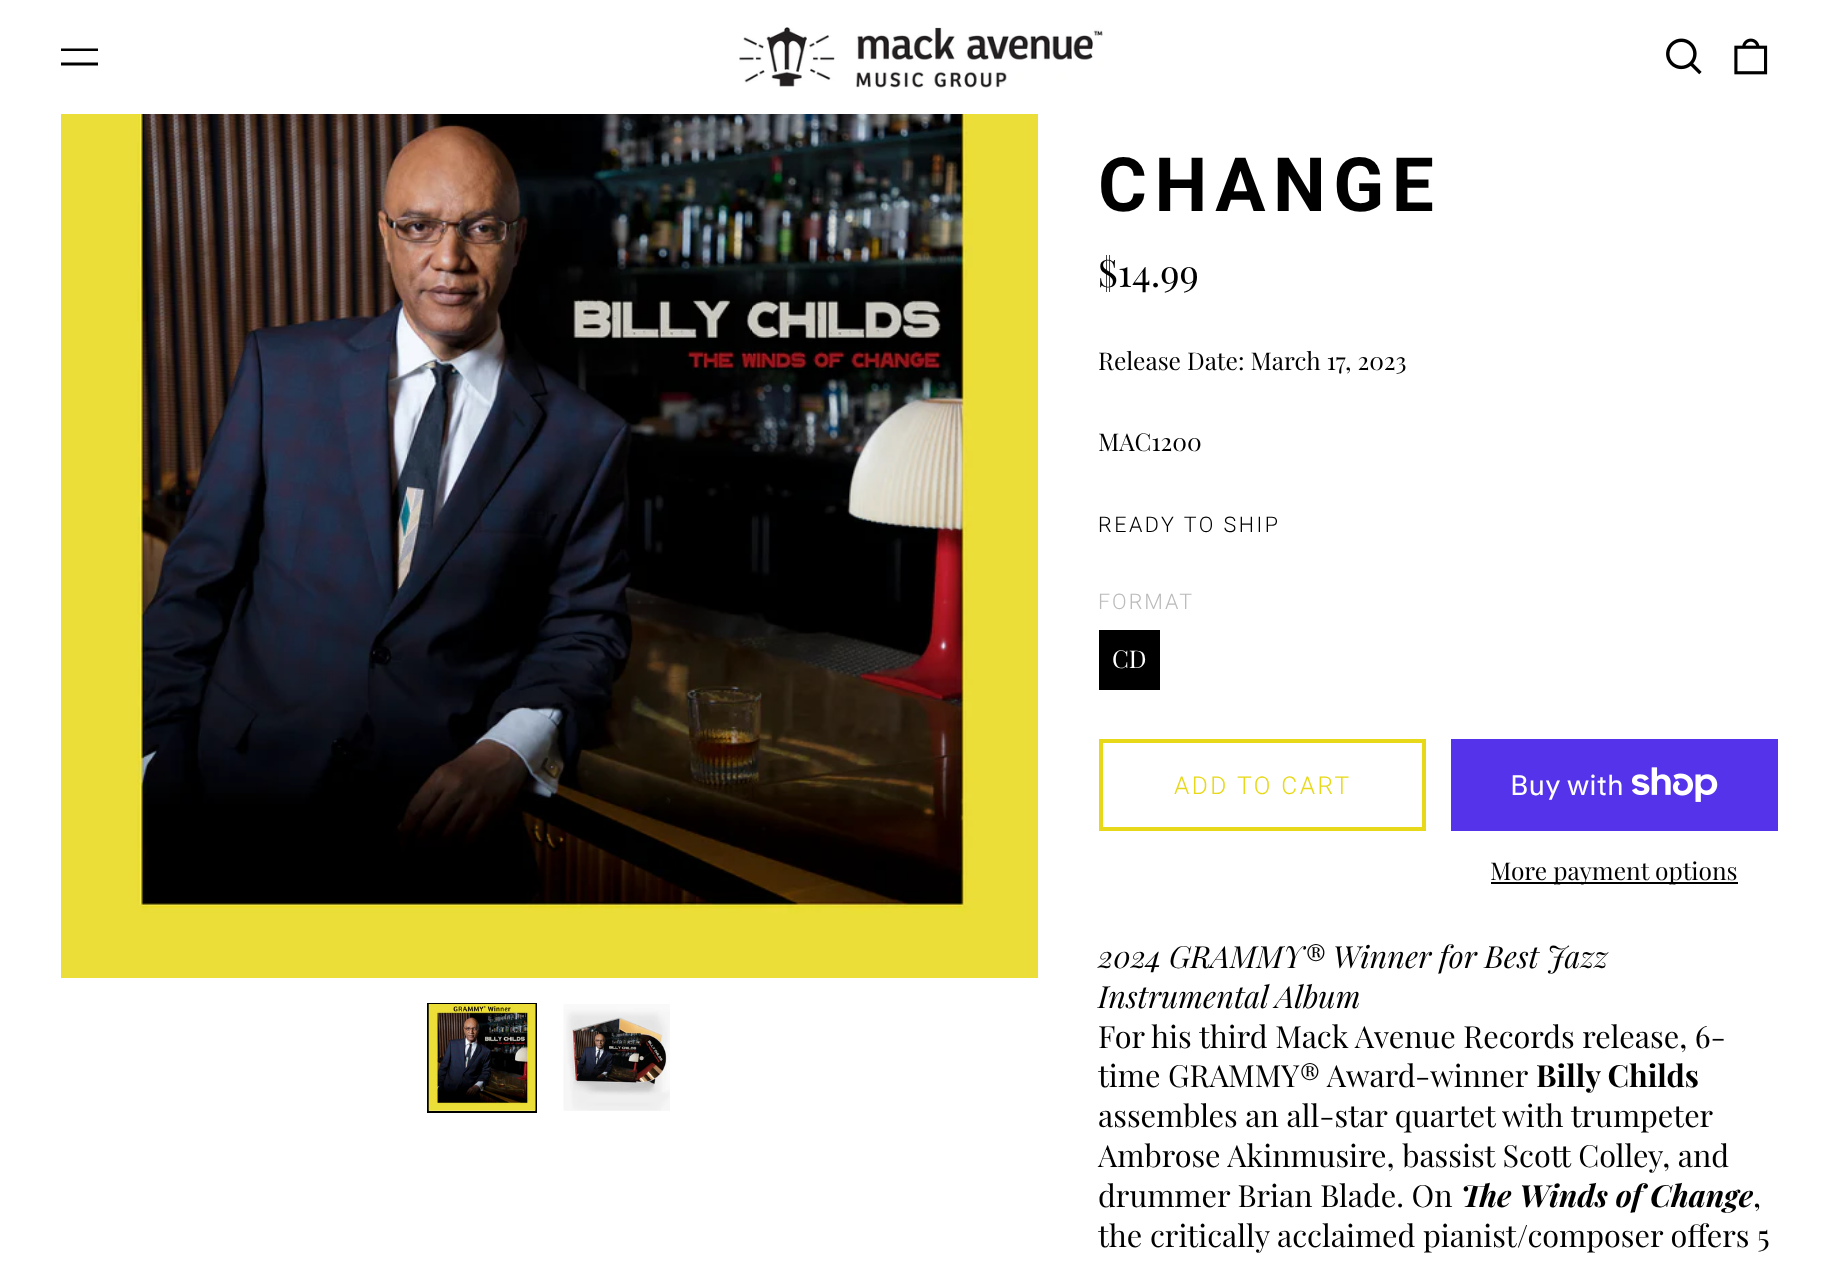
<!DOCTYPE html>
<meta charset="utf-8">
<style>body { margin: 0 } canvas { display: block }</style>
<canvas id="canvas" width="1838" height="1262"></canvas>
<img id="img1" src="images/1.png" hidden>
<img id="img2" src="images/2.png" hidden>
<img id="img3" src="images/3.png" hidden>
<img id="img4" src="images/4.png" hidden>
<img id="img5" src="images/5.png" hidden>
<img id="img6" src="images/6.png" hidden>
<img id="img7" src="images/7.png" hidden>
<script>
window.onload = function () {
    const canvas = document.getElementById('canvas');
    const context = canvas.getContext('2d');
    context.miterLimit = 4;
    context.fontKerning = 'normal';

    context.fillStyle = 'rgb(255, 255, 255)';
    context.fillRect(0, 0, 1838, 1262);
    context.fillStyle = 'rgb(0, 0, 0)';
    context.beginPath();
    context.moveTo(98, 62.5);
    context.lineTo(98, 65.5);
    context.lineTo(61, 65.5);
    context.lineTo(61, 62.5);
    context.closePath();
    context.moveTo(98, 48.5);
    context.lineTo(98, 51);
    context.lineTo(61, 51);
    context.lineTo(61, 48.5);
    context.closePath();
    context.fill('evenodd');
    context.drawImage(document.getElementById('img1'), 739, 27, 364, 61);
    context.drawImage(document.getElementById('img2'), 1666, 38, 36, 37);
    context.drawImage(document.getElementById('img3'), 1734, 38, 34, 37);
    context.drawImage(document.getElementById('img4'), 61, 114, 977, 864);
    context.strokeStyle = 'rgb(0, 0, 0)';
    context.lineWidth = 2;
    context.strokeRect(428, 1004, 108, 108);
    context.drawImage(document.getElementById('img5'), 428, 1004, 108, 107);
    context.drawImage(document.getElementById('img6'), 563, 1004, 107, 107);
    context.fillRect(1099, 630, 61, 60);
    context.strokeStyle = 'rgb(231, 216, 25)';
    context.lineWidth = 4;
    context.strokeRect(1101, 741, 323, 88);
    context.fillStyle = 'rgb(84, 51, 235)';
    context.fillRect(1451, 739, 327, 92);
    context.drawImage(document.getElementById('img7'), 1632, 767, 86, 35);
    context.fillStyle = 'rgb(0, 0, 0)';
    context.fillRect(1491, 882, 247, 2);
    context.letterSpacing = '7.5px';
    context.font = 'bold 74.75px Roboto';
    context.fillText('CHANGE', 1098, 211);
    context.letterSpacing = '0px';
    context.font = '38px Playfair Display';
    context.fillText('$14.99', 1098, 287);
    context.font = '24.5px Playfair Display';
    context.fillText('Release Date: March 17, 2023', 1098, 370);
    context.fillText('MAC1200', 1098, 451);
    context.letterSpacing = '2.5px';
    context.font = '300 21.5px Roboto';
    context.fillText('READY TO SHIP', 1098, 532);
    context.letterSpacing = '2px';
    context.fillStyle = 'rgb(187, 187, 187)';
    context.fillText('FORMAT', 1098, 609);
    context.letterSpacing = '0px';
    context.font = '24.5px Playfair Display';
    context.fillStyle = 'rgb(255, 255, 255)';
    context.fillText('CD', 1112, 668);
    context.letterSpacing = '2.5px';
    context.font = '300 24.5px Roboto';
    context.fillStyle = 'rgb(231, 216, 25)';
    context.fillText('ADD TO CART', 1174, 794);
    context.letterSpacing = '0px';
    context.font = '28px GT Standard';
    context.fillStyle = 'rgb(255, 255, 255)';
    context.fillText('Buy with', 1510, 795);
    context.font = '24.5px Playfair Display';
    context.fillStyle = 'rgb(0, 0, 0)';
    context.fillText('More payment options', 1490, 880);
    context.font = 'italic 30.6px Playfair Display';
    context.fillText('2024 GRAMMY® Winner for Best Jazz', 1098, 968);
    context.fillText('Instrumental Album', 1098, 1008);
    context.font = '30.6px Playfair Display';
    context.fillText('For his third Mack Avenue Records release, 6-', 1098, 1048);
    context.fillText('time GRAMMY® Award-winner', 1098, 1087);
    context.font = 'bold 30.6px Playfair Display';
    context.fillText('Billy Childs', 1536, 1087);
    context.font = '30.6px Playfair Display';
    context.fillText('assembles an all-star quartet with trumpeter', 1098, 1127);
    context.fillText('Ambrose Akinmusire, bassist Scott Colley, and', 1098, 1167);
    context.fillText('drummer Brian Blade. On', 1098, 1207);
    context.font = 'italic bold 30.6px Playfair Display';
    context.fillText('The Winds of Change', 1461, 1207);
    context.font = '30.6px Playfair Display';
    context.fillText(',', 1753, 1207);
    context.fillText('the critically acclaimed pianist/composer offers 5', 1098, 1247);
};
</script>
